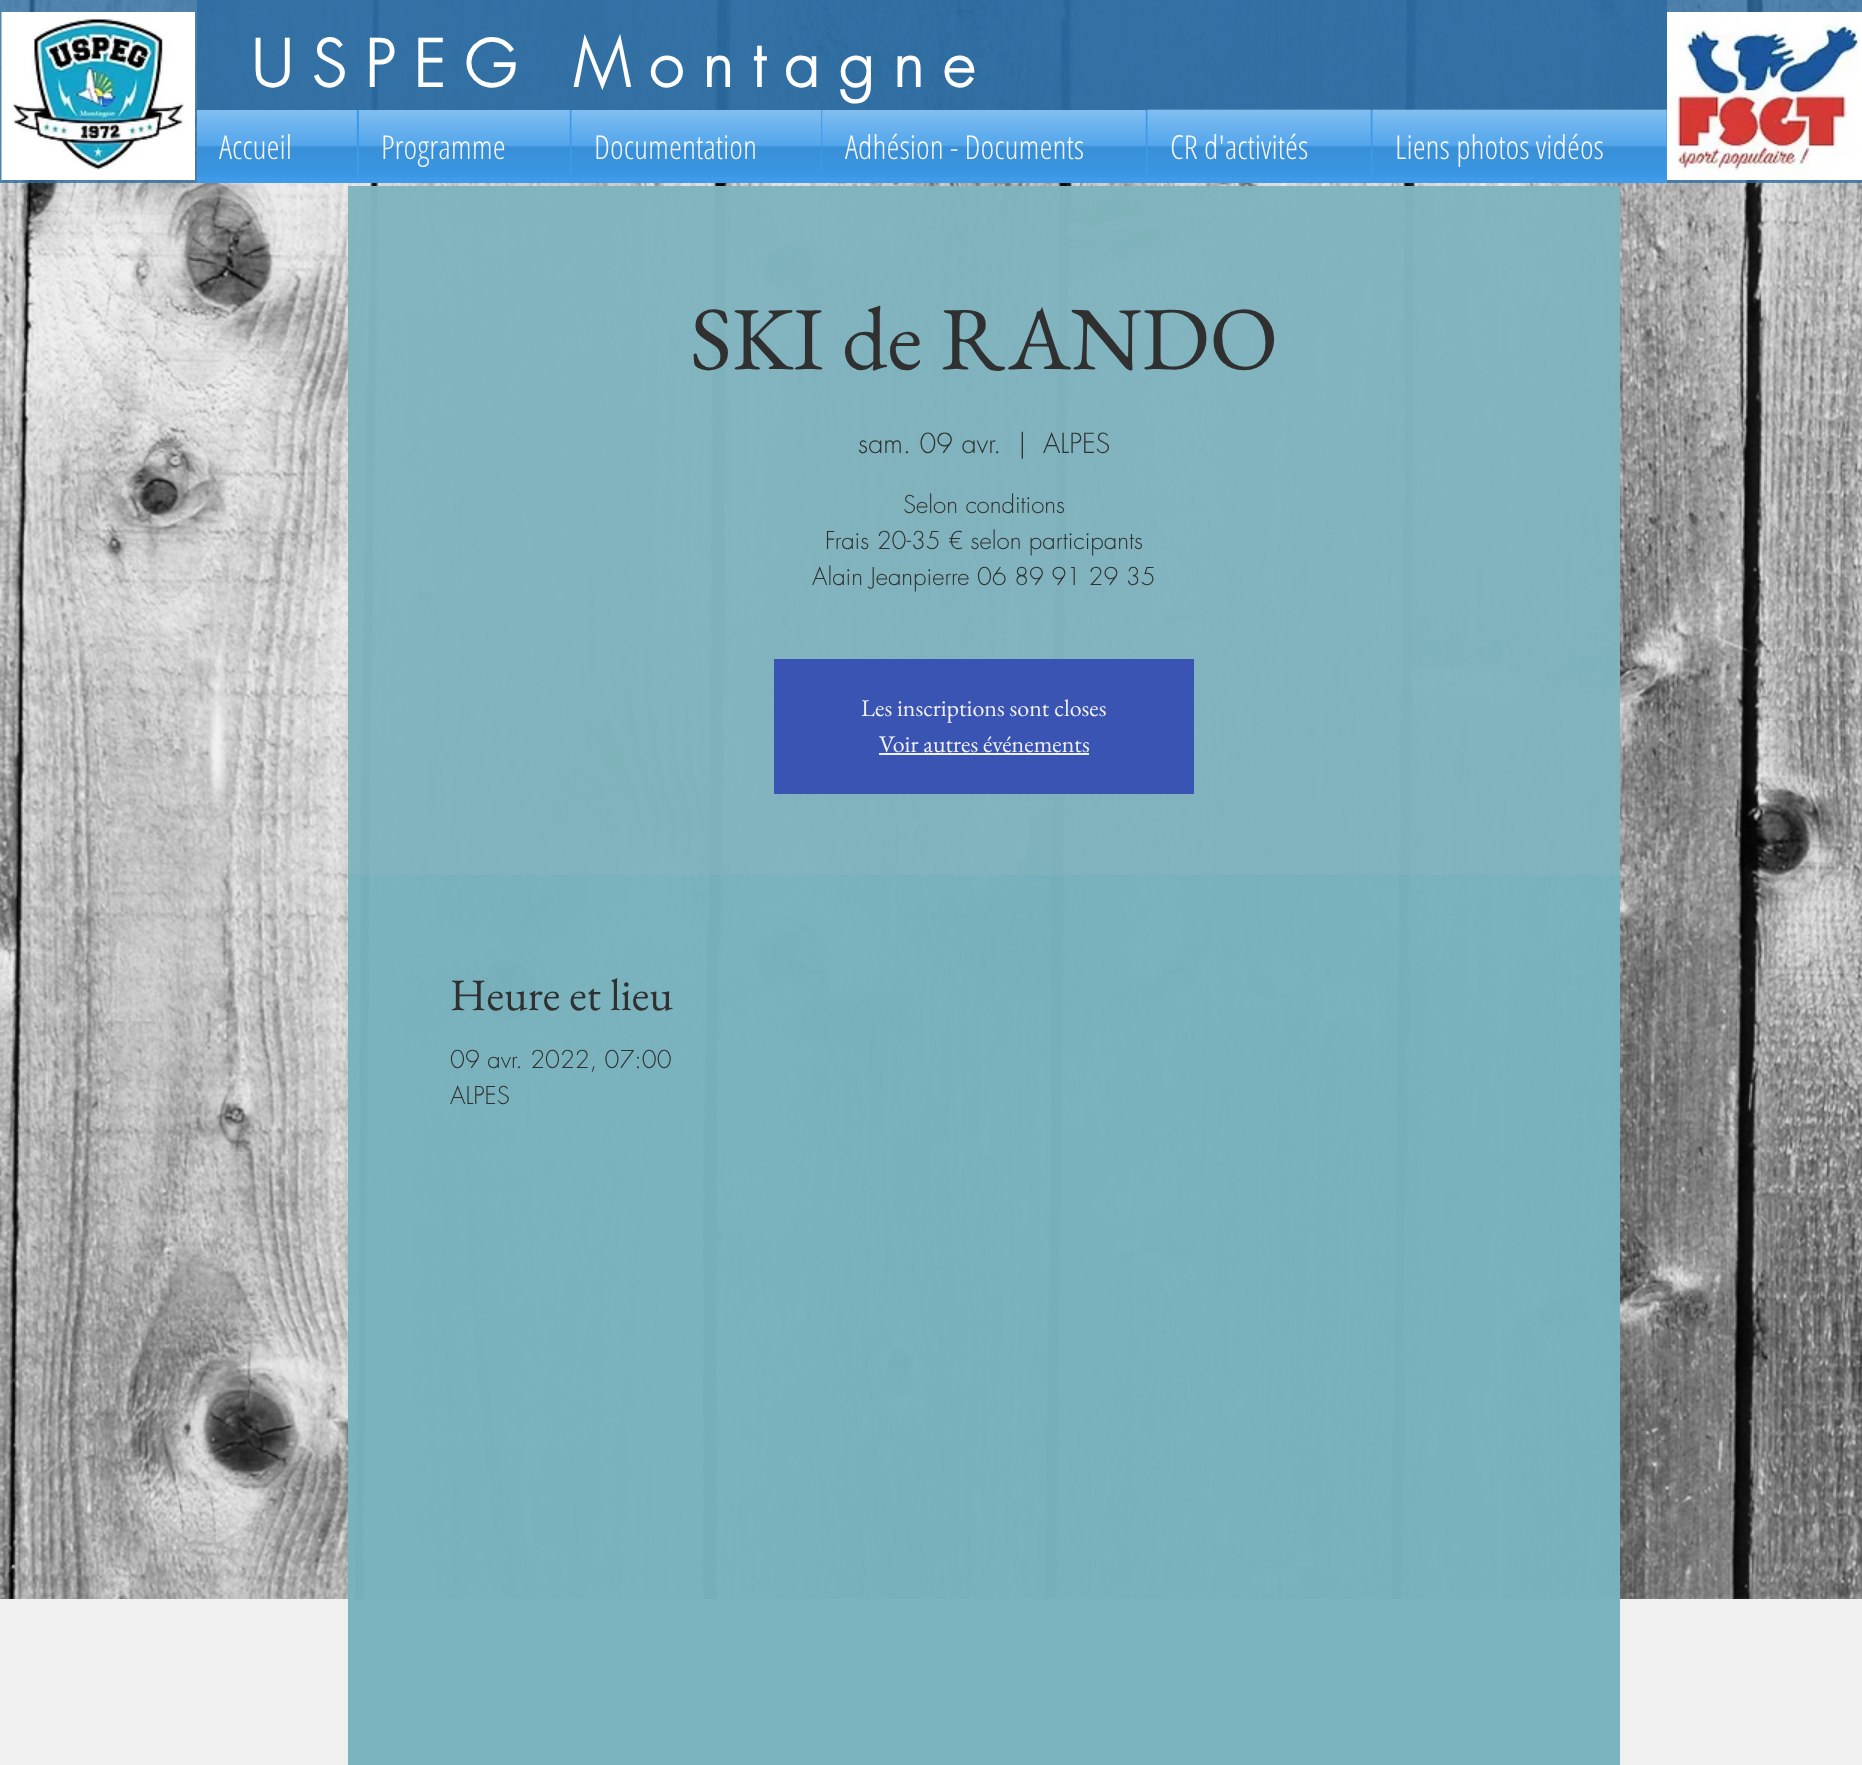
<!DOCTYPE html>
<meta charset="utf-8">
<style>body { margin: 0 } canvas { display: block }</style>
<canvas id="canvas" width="1862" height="1765"></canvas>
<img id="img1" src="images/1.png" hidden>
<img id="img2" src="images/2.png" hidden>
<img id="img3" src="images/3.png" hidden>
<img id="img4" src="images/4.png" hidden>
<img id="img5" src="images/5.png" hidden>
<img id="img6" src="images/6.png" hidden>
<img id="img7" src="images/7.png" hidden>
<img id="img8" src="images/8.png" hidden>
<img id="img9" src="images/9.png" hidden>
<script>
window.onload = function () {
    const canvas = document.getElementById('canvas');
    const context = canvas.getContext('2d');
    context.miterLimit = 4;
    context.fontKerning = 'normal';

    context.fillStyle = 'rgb(240, 240, 240)';
    context.fillRect(0, 0, 1862, 1765);
    context.drawImage(document.getElementById('img1'), 0, 0, 1862, 1599);
    context.fillStyle = 'rgba(43, 108, 163, 0.79)';
    context.fillRect(0, 0, 1862, 183);
    context.fillRect(197, 0, 1470, 110);
    context.drawImage(document.getElementById('img2'), 1, 12, 194, 168);
    context.drawImage(document.getElementById('img3'), 1667, 12, 195, 168);
    context.fillStyle = 'rgb(61, 155, 233)';
    context.fillRect(197, 110, 1174, 73);
    context.fillStyle = 'rgba(120, 178, 190, 0.98)';
    context.fillRect(348, 186, 1272, 1579);
    context.fillStyle = 'rgba(192, 192, 192, 0.1)';
    context.fillRect(348, 186, 1272, 689);
    context.fillStyle = 'rgb(58, 84, 180)';
    context.fillRect(774, 659, 420, 135);
    context.fillStyle = 'rgb(240, 240, 240)';
    context.fillRect(879, 753, 210, 2);
    context.letterSpacing = '18.9px';
    context.font = 'bold 63px futura';
    context.fillStyle = 'rgb(255, 255, 254)';
    context.fillText('USPEG Montagne', 251, 87);
    context.letterSpacing = '0px';
    context.font = '300 33px Open Sans Condensed';
    context.fillText('Accueil', 219, 159);
    context.drawImage(document.getElementById('img4'), 197, 110, 160, 67);
    context.fillText('Programme', 381, 159);
    context.drawImage(document.getElementById('img5'), 359, 110, 211, 67);
    context.fillText('Documentation', 594, 159);
    context.drawImage(document.getElementById('img6'), 571, 110, 250, 67);
    context.fillText('Adhésion - Documents', 845, 159);
    context.drawImage(document.getElementById('img7'), 821, 110, 325, 67);
    context.fillText('CR d\'activités', 1170, 159);
    context.drawImage(document.getElementById('img8'), 1147, 109, 225, 68);
    context.fillStyle = 'rgb(61, 155, 233)';
    context.fillRect(1371, 110, 296, 73);
    context.fillStyle = 'rgb(255, 255, 254)';
    context.fillText('Liens photos vidéos', 1395, 159);
    context.drawImage(document.getElementById('img9'), 1372, 109, 295, 68);
    context.font = '90px EB Garamond';
    context.fillStyle = 'rgb(48, 48, 48)';
    context.fillText('SKI de RANDO', 690, 369);
    context.font = '300 27px futura';
    context.fillText('sam. 09 avr.', 858, 453);
    context.fillText('|', 1018, 453);
    context.fillText('ALPES', 1043, 453);
    context.font = '300 24px futura';
    context.fillText('Selon conditions', 903, 513);
    context.fillText('Frais 20-35 € selon participants', 825, 549);
    context.fillText('Alain Jeanpierre 06 89 91 29 35', 812, 585);
    context.font = '24px EB Garamond';
    context.fillStyle = 'rgb(240, 240, 240)';
    context.fillText('Les inscriptions sont closes', 861, 716);
    context.fillText('Voir autres événements', 879, 752);
    context.font = '45px EB Garamond';
    context.fillStyle = 'rgb(48, 48, 48)';
    context.fillText('Heure et lieu', 450, 1010);
    context.font = '300 24px futura';
    context.fillText('09 avr. 2022, 07:00', 450, 1068);
    context.fillText('ALPES', 450, 1104);
};
</script>
